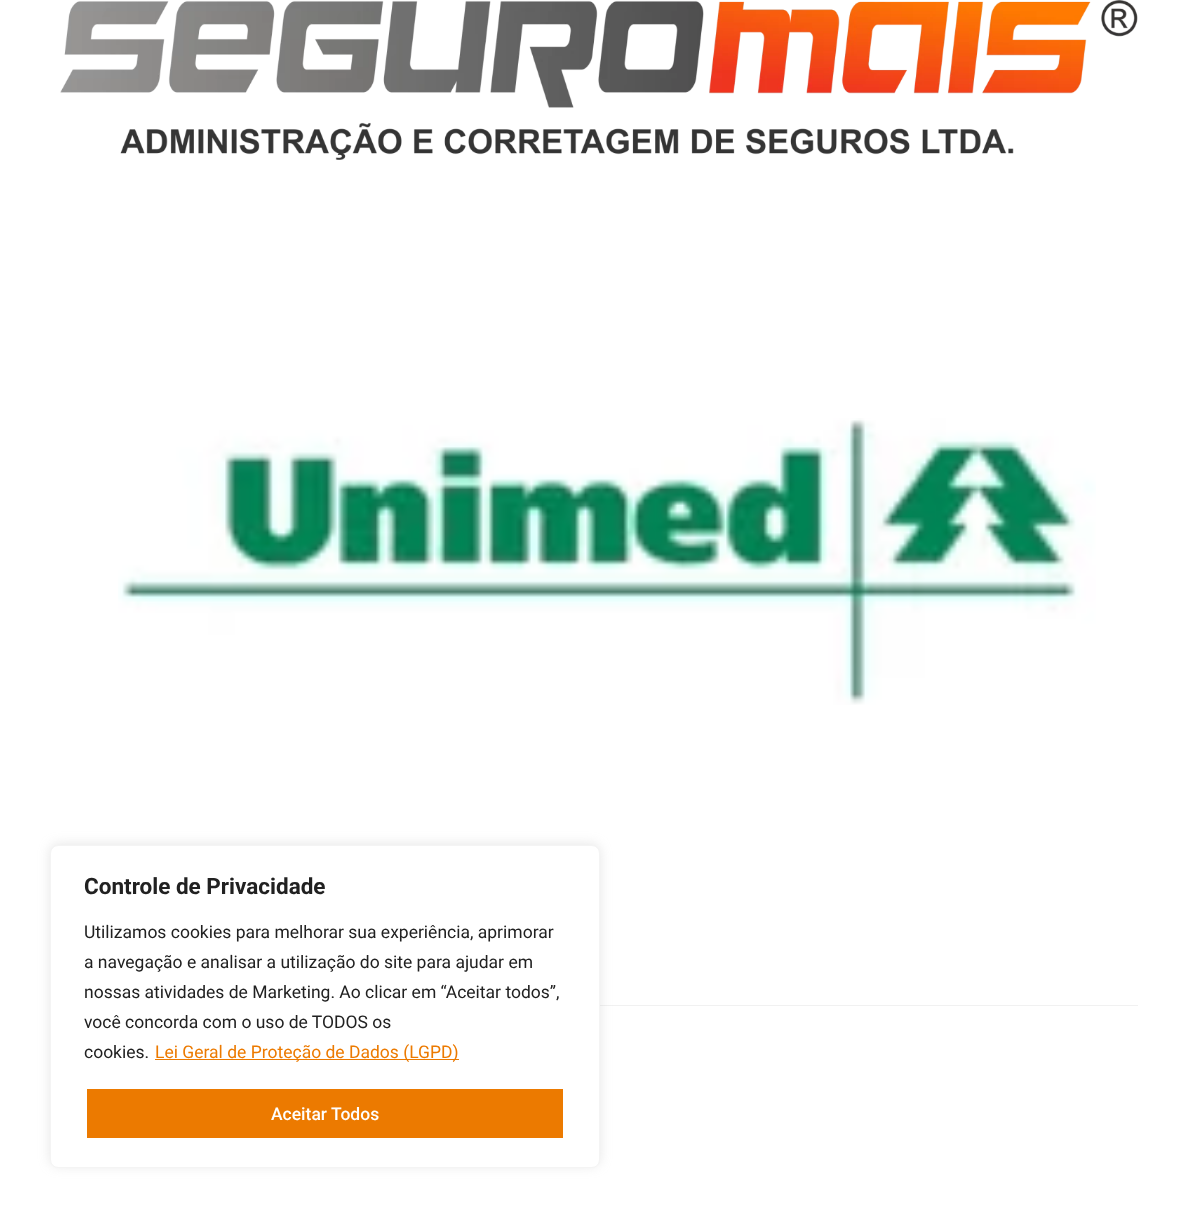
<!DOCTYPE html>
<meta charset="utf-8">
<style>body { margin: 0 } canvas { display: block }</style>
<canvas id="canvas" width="1197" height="1217"></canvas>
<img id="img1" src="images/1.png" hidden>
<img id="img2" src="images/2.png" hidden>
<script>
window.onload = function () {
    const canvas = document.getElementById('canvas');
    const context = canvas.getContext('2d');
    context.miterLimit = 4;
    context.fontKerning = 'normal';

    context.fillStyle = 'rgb(255, 255, 255)';
    context.fillRect(0, 0, 1197, 1217);
    context.drawImage(document.getElementById('img1'), 60, 0, 1078, 160);
    context.drawImage(document.getElementById('img2'), 118, 418, 978, 287);
    context.fillStyle = 'rgb(241, 241, 241)';
    context.fillRect(600, 1005, 538, 1);
    context.fillStyle = 'rgba(172, 171, 171, 0.3)';
    context.filter = 'blur(6px)';
    context.beginPath();
    context.roundRect(50, 844, 550, 322, 8);
    context.fill();
    context.filter = 'none';
    context.fillStyle = 'rgb(255, 255, 255)';
    context.beginPath();
    context.roundRect(50.5, 845.5, 549, 322, 7.5);
    context.fill();
    context.strokeStyle = 'rgb(244, 244, 244)';
    context.stroke();
    context.fillStyle = 'rgb(236, 122, 0)';
    context.fillRect(155, 1059, 304, 1);
    context.beginPath();
    context.roundRect(85.5, 1087.5, 479, 52, 1);
    context.fill();
    context.strokeStyle = 'rgb(255, 255, 255)';
    context.lineWidth = 3;
    context.stroke();
    context.font = 'bold 22.5px Roboto';
    context.fillStyle = 'rgb(33, 33, 33)';
    context.fillText('Controle de Privacidade', 84, 894);
    context.font = '17.5px Roboto';
    context.fillText('Utilizamos cookies para melhorar sua experiência, aprimorar', 84, 938);
    context.fillText('a navegação e analisar a utilização do site para ajudar em', 84, 968);
    context.fillText('nossas atividades de Marketing. Ao clicar em “Aceitar todos”,', 84, 998);
    context.fillText('você concorda com o uso de TODOS os', 84, 1028);
    context.fillText('cookies.', 84, 1058);
    context.fillStyle = 'rgb(236, 122, 0)';
    context.fillText('Lei Geral de Proteção de Dados (LGPD)', 155, 1058);
    context.font = '500 17.5px Roboto';
    context.fillStyle = 'rgb(255, 255, 255)';
    context.fillText('Aceitar Todos', 271, 1120);
};
</script>
